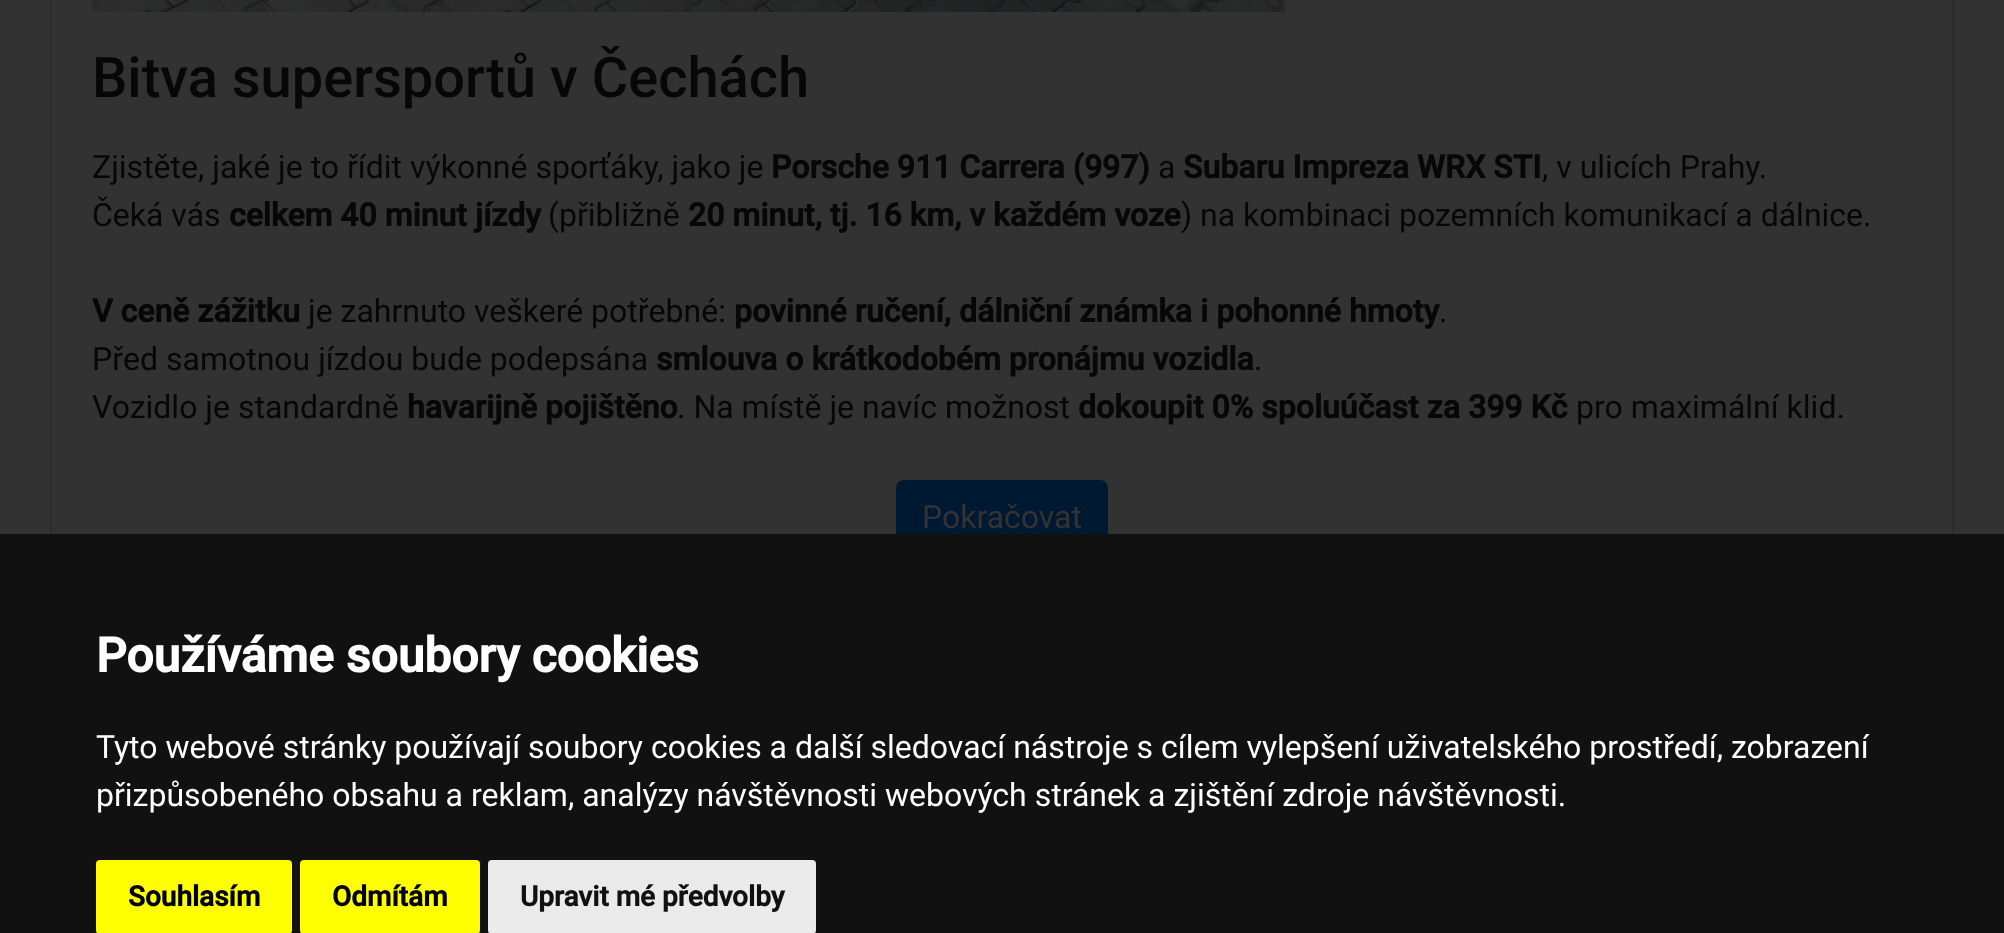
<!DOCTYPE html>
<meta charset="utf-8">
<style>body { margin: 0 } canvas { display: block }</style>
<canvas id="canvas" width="2004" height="933"></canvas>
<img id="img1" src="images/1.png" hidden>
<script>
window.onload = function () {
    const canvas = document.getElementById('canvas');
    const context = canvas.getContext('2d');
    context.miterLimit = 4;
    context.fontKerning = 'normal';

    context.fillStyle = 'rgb(50, 50, 50)';
    context.fillRect(0, 0, 2004, 933);
    context.strokeStyle = 'rgba(0, 0, 0, 0.12)';
    context.lineWidth = 2;
    context.strokeRect(51, -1, 1902, 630);
    context.drawImage(document.getElementById('img1'), 92, 0, 1194, 12);
    context.fillStyle = 'rgb(0, 25, 51)';
    context.beginPath();
    context.roundRect(897, 481, 210, 74, 7);
    context.fill();
    context.strokeStyle = 'rgb(0, 25, 51)';
    context.stroke();
    context.fillStyle = 'rgb(17, 17, 17)';
    context.fillRect(0, 534, 2004, 399);
    context.fillStyle = 'rgb(255, 255, 0)';
    context.beginPath();
    context.roundRect(96, 860, 196, 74, 4);
    context.fill();
    context.beginPath();
    context.roundRect(300, 860, 180, 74, 4);
    context.fill();
    context.fillStyle = 'rgb(234, 234, 234)';
    context.beginPath();
    context.roundRect(488, 860, 328, 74, 4);
    context.fill();
    context.font = '500 56px Roboto';
    context.fillStyle = 'rgb(7, 7, 8)';
    context.fillText('Bitva supersportů v Čechách', 92, 97);
    context.font = '32px Roboto';
    context.fillText('Zjistěte, jaké je to řídit výkonné sporťáky, jako je', 92, 178);
    context.font = 'bold 32px Roboto';
    context.fillText('Porsche 911 Carrera (997)', 771, 178);
    context.font = '32px Roboto';
    context.fillText('a', 1158, 178);
    context.font = 'bold 32px Roboto';
    context.fillText('Subaru Impreza WRX STI', 1183, 178);
    context.font = '32px Roboto';
    context.fillText(', v ulicích Prahy.', 1542, 178);
    context.fillText('Čeká vás', 92, 226);
    context.font = 'bold 32px Roboto';
    context.fillText('celkem 40 minut jízdy', 229, 226);
    context.font = '32px Roboto';
    context.fillText('(přibližně', 548, 226);
    context.font = 'bold 32px Roboto';
    context.fillText('20 minut, tj. 16 km, v každém voze', 688, 226);
    context.font = '32px Roboto';
    context.fillText(') na kombinaci pozemních komunikací a dálnice.', 1181, 226);
    context.font = 'bold 32px Roboto';
    context.fillText('V ceně zážitku', 92, 322);
    context.font = '32px Roboto';
    context.fillText('je zahrnuto veškeré potřebné:', 308, 322);
    context.font = 'bold 32px Roboto';
    context.fillText('povinné ručení, dálniční známka i pohonné hmoty', 734, 322);
    context.font = '32px Roboto';
    context.fillText('.', 1439, 322);
    context.fillText('Před samotnou jízdou bude podepsána', 92, 370);
    context.font = 'bold 32px Roboto';
    context.fillText('smlouva o krátkodobém pronájmu vozidla', 656, 370);
    context.font = '32px Roboto';
    context.fillText('.', 1254, 370);
    context.fillText('Vozidlo je standardně', 92, 418);
    context.font = 'bold 32px Roboto';
    context.fillText('havarijně pojištěno', 407, 418);
    context.font = '32px Roboto';
    context.fillText('. Na místě je navíc možnost', 677, 418);
    context.font = 'bold 32px Roboto';
    context.fillText('dokoupit 0% spoluúčast za 399 Kč', 1078, 418);
    context.font = '32px Roboto';
    context.fillText('pro maximální klid.', 1576, 418);
    context.fillStyle = 'rgb(51, 51, 51)';
    context.fillText('Pokračovat', 922, 528);
    context.font = 'bold 48px Roboto';
    context.fillStyle = 'rgb(255, 255, 255)';
    context.fillText('Používáme soubory cookies', 96, 672);
    context.font = '32px Roboto';
    context.fillText('Tyto webové stránky používají soubory cookies a další sledovací nástroje s cílem vylepšení uživatelského prostředí, zobrazení', 96, 758);
    context.fillText('přizpůsobeného obsahu a reklam, analýzy návštěvnosti webových stránek a zjištění zdroje návštěvnosti.', 96, 806);
    context.font = 'bold 28px Roboto';
    context.fillStyle = 'rgb(0, 0, 0)';
    context.fillText('Souhlasím', 128, 906);
    context.fillText('Odmítám', 332, 906);
    context.fillStyle = 'rgb(17, 17, 17)';
    context.fillText('Upravit mé předvolby', 520, 906);
};
</script>
